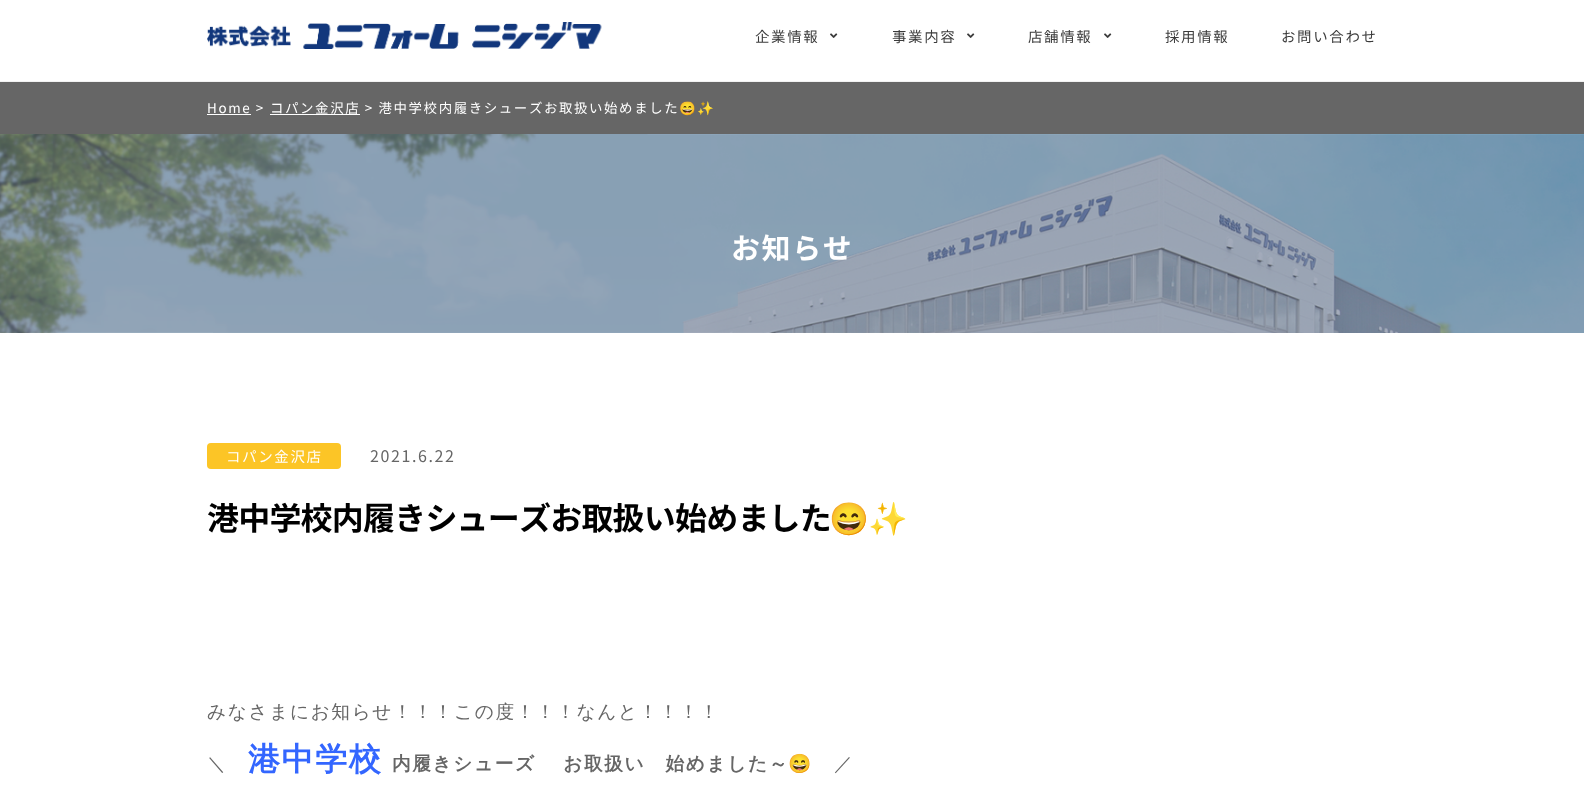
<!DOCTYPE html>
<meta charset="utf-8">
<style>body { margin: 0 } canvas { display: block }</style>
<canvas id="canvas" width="1584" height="788"></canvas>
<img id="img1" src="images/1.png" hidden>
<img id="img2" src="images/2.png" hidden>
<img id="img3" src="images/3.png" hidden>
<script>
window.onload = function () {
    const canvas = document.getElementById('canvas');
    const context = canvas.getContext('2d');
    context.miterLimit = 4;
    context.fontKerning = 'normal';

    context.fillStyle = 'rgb(255, 255, 255)';
    context.fillRect(0, 0, 1584, 788);
    context.fillStyle = 'rgb(242, 242, 242)';
    context.fillRect(0, 81, 1584, 1);
    context.drawImage(document.getElementById('img1'), 207, 22, 395, 27);
    context.drawImage(document.getElementById('img2'), 830, 33, 8, 5);
    context.drawImage(document.getElementById('img2'), 967, 33, 8, 5);
    context.drawImage(document.getElementById('img2'), 1104, 33, 8, 5);
    context.fillStyle = 'rgb(102, 102, 102)';
    context.fillRect(0, 82, 1584, 52);
    context.fillStyle = 'rgb(255, 255, 255)';
    context.fillRect(207, 114, 44, 1);
    context.fillRect(270, 114, 90, 1);
    context.drawImage(document.getElementById('img3'), 0, 134, 1584, 199);
    context.fillStyle = 'rgb(252, 197, 38)';
    context.beginPath();
    context.roundRect(207, 443, 134, 26, 4);
    context.fill();
    context.letterSpacing = '1.6px';
    context.font = '14.5px Noto Sans JP';
    context.fillStyle = 'rgb(59, 59, 59)';
    context.fillText('企業情報', 755, 42);
    context.fillText('事業内容', 892, 42);
    context.fillText('店舗情報', 1028, 42);
    context.fillText('採用情報', 1165, 42);
    context.fillText('お問い合わせ', 1281, 42);
    context.font = '13.45px Noto Sans JP';
    context.fillStyle = 'rgb(255, 255, 255)';
    context.fillText('Home >', 207, 113);
    context.fillText('コパン金沢店 > 港中学校内履きシューズお取扱い始めました', 270, 113);
    context.font = '13.45px Noto Color Emoji';
    context.fillText('😄✨', 679, 113);
    context.font = 'bold 29px Noto Sans JP';
    context.fillText('お知らせ', 731, 259);
    context.font = '14.5px Noto Sans JP';
    context.fillText('コパン金沢店', 226, 462);
    context.font = '16px Noto Sans JP';
    context.fillStyle = 'rgb(102, 102, 102)';
    context.fillText('2021.6.22', 370, 462);
    context.letterSpacing = '-0.8px';
    context.font = 'bold 32px Noto Sans JP';
    context.fillStyle = 'rgb(0, 0, 0)';
    context.fillText('港中学校内履きシューズお取扱い始めました', 207, 530);
    context.font = 'bold 32px Noto Color Emoji';
    context.fillText('😄✨', 829, 530);
    context.letterSpacing = '1.6px';
    context.font = '500 18.7px WenQuanYi Zen Hei';
    context.fillStyle = 'rgb(102, 102, 102)';
    context.fillText('みなさまにお知らせ！！！この度！！！なんと！！！！', 207, 718);
    context.fillText('＼', 207, 770);
    context.font = 'bold 32px WenQuanYi Zen Hei';
    context.fillStyle = 'rgb(51, 102, 255)';
    context.fillText('港中学校', 248, 770);
    context.font = 'bold 18.7px WenQuanYi Zen Hei';
    context.fillStyle = 'rgb(102, 102, 102)';
    context.fillText('内履きシューズ 　お取扱い　始めました～', 392, 770);
    context.font = '18.7px Noto Color Emoji';
    context.fillText('😄', 788, 770);
    context.font = '500 18.7px WenQuanYi Zen Hei';
    context.fillText('／', 834, 770);
};
</script>
